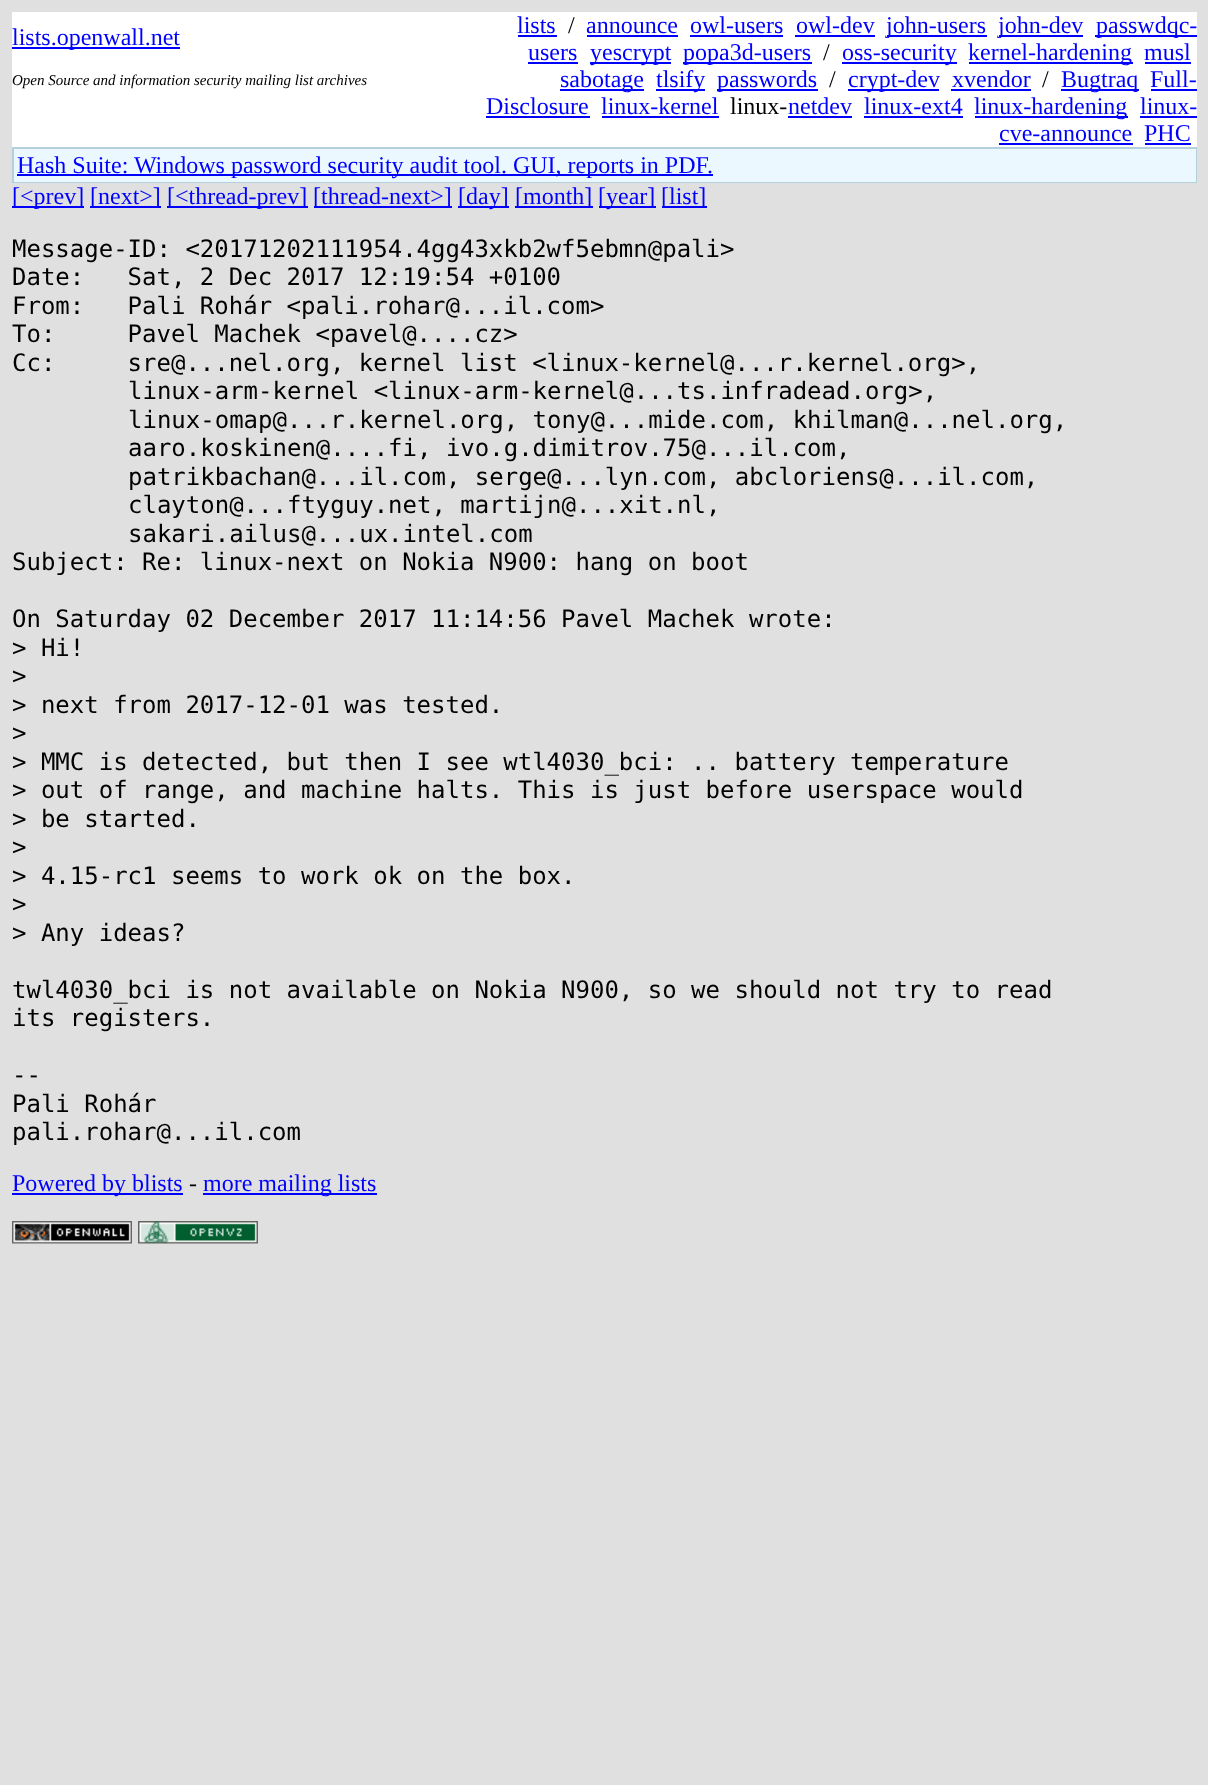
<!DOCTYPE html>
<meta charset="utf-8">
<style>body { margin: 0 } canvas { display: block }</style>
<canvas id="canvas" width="1208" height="1785"></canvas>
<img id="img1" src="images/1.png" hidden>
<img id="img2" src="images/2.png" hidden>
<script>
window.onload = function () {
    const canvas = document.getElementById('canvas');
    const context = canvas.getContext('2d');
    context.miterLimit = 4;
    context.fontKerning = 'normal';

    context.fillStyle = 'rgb(224, 224, 224)';
    context.fillRect(0, 0, 1208, 1785);
    context.fillStyle = 'rgb(255, 255, 255)';
    context.fillRect(12, 12, 1185, 135);
    context.fillStyle = 'rgb(0, 0, 255)';
    context.fillRect(12, 47, 168, 2);
    context.fillRect(518, 35, 39, 2);
    context.fillRect(587, 35, 91, 2);
    context.fillRect(690, 35, 93, 2);
    context.fillRect(795, 35, 80, 2);
    context.fillRect(887, 35, 100, 2);
    context.fillRect(999, 35, 84, 2);
    context.fillRect(1095, 35, 102, 2);
    context.fillRect(528, 62, 50, 2);
    context.fillRect(590, 62, 81, 2);
    context.fillRect(683, 62, 129, 2);
    context.fillRect(842, 62, 115, 2);
    context.fillRect(969, 62, 164, 2);
    context.fillRect(1145, 62, 46, 2);
    context.fillRect(560, 89, 84, 2);
    context.fillRect(656, 89, 49, 2);
    context.fillRect(717, 89, 101, 2);
    context.fillRect(848, 89, 91, 2);
    context.fillRect(951, 89, 80, 2);
    context.fillRect(1061, 89, 78, 2);
    context.fillRect(1151, 89, 46, 2);
    context.fillRect(486, 116, 104, 2);
    context.fillRect(602, 116, 117, 2);
    context.fillRect(788, 116, 64, 2);
    context.fillRect(864, 116, 99, 2);
    context.fillRect(975, 116, 153, 2);
    context.fillRect(1140, 116, 57, 2);
    context.fillRect(999, 143, 134, 2);
    context.fillRect(1145, 143, 46, 2);
    context.fillStyle = 'rgb(180, 208, 220)';
    context.fillRect(12, 147, 1185, 36);
    context.fillStyle = 'rgb(236, 248, 255)';
    context.fillRect(14, 149, 1182, 33);
    context.fillStyle = 'rgb(0, 0, 255)';
    context.fillRect(17, 174, 696, 2);
    context.fillRect(12, 206, 72, 2);
    context.fillRect(90, 206, 71, 2);
    context.fillRect(167, 206, 141, 2);
    context.fillRect(314, 206, 138, 2);
    context.fillRect(458, 206, 51, 2);
    context.fillRect(515, 206, 78, 2);
    context.fillRect(599, 206, 57, 2);
    context.fillRect(662, 206, 45, 2);
    context.fillRect(12, 1193, 171, 2);
    context.fillRect(203, 1193, 174, 2);
    context.drawImage(document.getElementById('img1'), 12, 1221, 120, 23);
    context.drawImage(document.getElementById('img2'), 138, 1221, 120, 23);
    context.font = '24px Liberation Serif';
    context.fillText('lists.openwall.net', 12, 45);
    context.fillText('lists', 517, 33);
    context.fillStyle = 'rgb(0, 0, 0)';
    context.fillText('/', 568, 33);
    context.fillStyle = 'rgb(0, 0, 255)';
    context.fillText('announce', 586, 33);
    context.fillText('owl-users', 690, 33);
    context.fillText('owl-dev', 796, 33);
    context.fillText('john-users', 886, 33);
    context.fillText('john-dev', 998, 33);
    context.fillText('passwdqc-', 1096, 33);
    context.fillText('users', 528, 60);
    context.fillText('yescrypt', 590, 60);
    context.fillText('popa3d-users', 683, 60);
    context.fillStyle = 'rgb(0, 0, 0)';
    context.fillText('/', 823, 60);
    context.fillStyle = 'rgb(0, 0, 255)';
    context.fillText('oss-security', 842, 60);
    context.fillText('kernel-hardening', 968, 60);
    context.fillText('musl', 1144, 60);
    context.fillText('sabotage', 560, 87);
    context.fillText('tlsify', 656, 87);
    context.fillText('passwords', 717, 87);
    context.fillStyle = 'rgb(0, 0, 0)';
    context.fillText('/', 829, 87);
    context.fillStyle = 'rgb(0, 0, 255)';
    context.fillText('crypt-dev', 848, 87);
    context.fillText('xvendor', 952, 87);
    context.fillStyle = 'rgb(0, 0, 0)';
    context.fillText('/', 1042, 87);
    context.fillStyle = 'rgb(0, 0, 255)';
    context.fillText('Bugtraq', 1061, 87);
    context.fillText('Full-', 1150, 87);
    context.fillText('Disclosure', 486, 114);
    context.fillText('linux-kernel', 601, 114);
    context.fillStyle = 'rgb(0, 0, 0)';
    context.fillText('linux-', 730, 114);
    context.fillStyle = 'rgb(0, 0, 255)';
    context.fillText('netdev', 788, 114);
    context.fillText('linux-ext4', 864, 114);
    context.fillText('linux-hardening', 974, 114);
    context.fillText('linux-', 1140, 114);
    context.fillText('cve-announce', 999, 141);
    context.fillText('PHC', 1144, 141);
    context.font = 'italic 15px Liberation Serif';
    context.fillStyle = 'rgb(0, 0, 0)';
    context.fillText('Open Source and information security mailing list archives', 12, 85);
    context.font = '24px Liberation Serif';
    context.fillStyle = 'rgb(0, 0, 255)';
    context.fillText('Hash Suite: Windows password security audit tool. GUI, reports in PDF.', 17, 173);
    context.fillText('[<prev]', 12, 204);
    context.fillText('[next>]', 90, 204);
    context.fillText('[<thread-prev]', 167, 204);
    context.fillText('[thread-next>]', 313, 204);
    context.fillText('[day]', 458, 204);
    context.fillText('[month]', 515, 204);
    context.fillText('[year]', 598, 204);
    context.fillText('[list]', 661, 204);
    context.font = '24px DejaVu Sans Mono';
    context.fillStyle = 'rgb(0, 0, 0)';
    context.fillText('Message-ID: <20171202111954.4gg43xkb2wf5ebmn@pali>', 12, 257);
    context.fillText('Date:   Sat, 2 Dec 2017 12:19:54 +0100', 12, 285);
    context.fillText('From:   Pali Rohár <pali.rohar@...il.com>', 12, 314);
    context.fillText('To:     Pavel Machek <pavel@....cz>', 12, 342);
    context.fillText('Cc:     sre@...nel.org, kernel list <linux-kernel@...r.kernel.org>,', 12, 371);
    context.fillText('linux-arm-kernel <linux-arm-kernel@...ts.infradead.org>,', 128, 399);
    context.fillText('linux-omap@...r.kernel.org, tony@...mide.com, khilman@...nel.org,', 128, 428);
    context.fillText('aaro.koskinen@....fi, ivo.g.dimitrov.75@...il.com,', 128, 456);
    context.fillText('patrikbachan@...il.com, serge@...lyn.com, abcloriens@...il.com,', 128, 485);
    context.fillText('clayton@...ftyguy.net, martijn@...xit.nl,', 128, 513);
    context.fillText('sakari.ailus@...ux.intel.com', 128, 542);
    context.fillText('Subject: Re: linux-next on Nokia N900: hang on boot', 12, 570);
    context.fillText('On Saturday 02 December 2017 11:14:56 Pavel Machek wrote:', 12, 627);
    context.fillText('> Hi!', 12, 656);
    context.fillText('>', 12, 684);
    context.fillText('> next from 2017-12-01 was tested.', 12, 713);
    context.fillText('>', 12, 741);
    context.fillText('> MMC is detected, but then I see wtl4030_bci: .. battery temperature', 12, 770);
    context.fillText('> out of range, and machine halts. This is just before userspace would', 12, 798);
    context.fillText('> be started.', 12, 827);
    context.fillText('>', 12, 855);
    context.fillText('> 4.15-rc1 seems to work ok on the box.', 12, 884);
    context.fillText('>', 12, 912);
    context.fillText('> Any ideas?', 12, 941);
    context.fillText('twl4030_bci is not available on Nokia N900, so we should not try to read', 12, 998);
    context.fillText('its registers.', 12, 1026);
    context.fillText('--', 12, 1083);
    context.fillText('Pali Rohár', 12, 1112);
    context.fillText('pali.rohar@...il.com', 12, 1140);
    context.font = '24px Liberation Serif';
    context.fillStyle = 'rgb(0, 0, 255)';
    context.fillText('Powered by blists', 12, 1191);
    context.fillStyle = 'rgb(0, 0, 0)';
    context.fillText('-', 189, 1191);
    context.fillStyle = 'rgb(0, 0, 255)';
    context.fillText('more mailing lists', 203, 1191);
};
</script>
